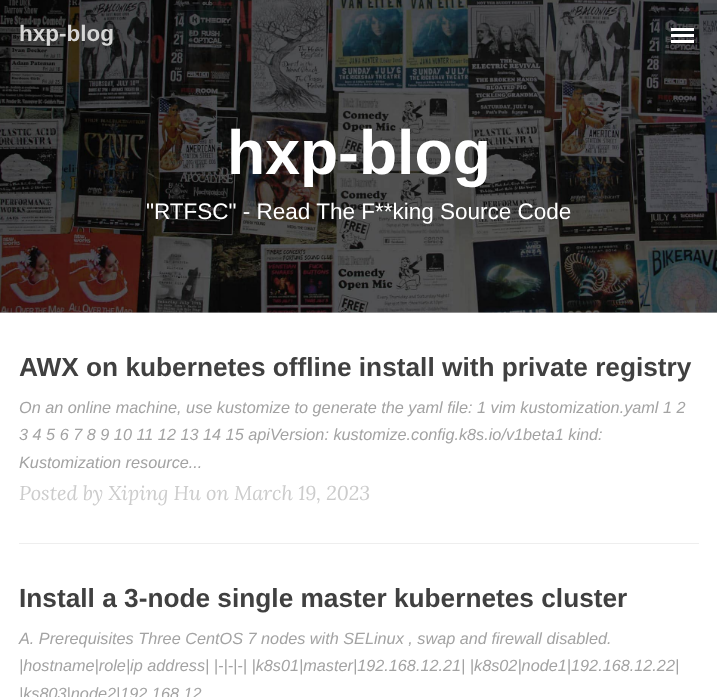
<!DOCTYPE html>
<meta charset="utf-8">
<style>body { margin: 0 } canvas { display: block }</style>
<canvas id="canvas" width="717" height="697"></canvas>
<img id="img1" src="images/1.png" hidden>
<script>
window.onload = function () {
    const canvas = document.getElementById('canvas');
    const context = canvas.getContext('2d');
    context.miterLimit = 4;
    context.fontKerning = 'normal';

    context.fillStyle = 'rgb(255, 255, 255)';
    context.fillRect(0, 0, 717, 697);
    context.fillStyle = 'rgb(204, 204, 204)';
    context.fillRect(0, 312, 717, 1);
    context.drawImage(document.getElementById('img1'), 0, 0, 717, 313);
    context.fillStyle = 'rgb(255, 255, 255)';
    context.fillRect(671, 28, 23, 3);
    context.fillRect(671, 34, 23, 3);
    context.fillRect(671, 40, 23, 3);
    context.fillStyle = 'rgb(238, 238, 238)';
    context.fillRect(19, 543, 680, 1);
    context.font = 'bold 22.5px Liberation Sans';
    context.fillStyle = 'rgb(214, 214, 213)';
    context.fillText('hxp-blog', 19, 41);
    context.font = 'bold 62.5px Liberation Sans';
    context.fillStyle = 'rgb(255, 255, 255)';
    context.fillText('hxp-blog', 227, 174);
    context.font = '22.5px Liberation Sans';
    context.fillText('"RTFSC" - Read The F**king Source Code', 146, 219);
    context.font = 'bold 26.25px Liberation Sans';
    context.fillStyle = 'rgb(64, 64, 64)';
    context.fillText('AWX on kubernetes offline install with private registry', 19, 376);
    context.font = 'italic 16.25px Liberation Sans';
    context.fillStyle = 'rgb(163, 163, 163)';
    context.fillText('On an online machine, use kustomize to generate the yaml file: 1 vim kustomization.yaml 1 2', 19, 413);
    context.fillText('3 4 5 6 7 8 9 10 11 12 13 14 15 apiVersion: kustomize.config.k8s.io/v1beta1 kind:', 19, 440);
    context.fillText('Kustomization resource...', 19, 468);
    context.font = 'italic 20px Lora';
    context.fillStyle = 'rgb(204, 204, 204)';
    context.fillText('Posted by Xiping Hu on March 19, 2023', 19, 500);
    context.font = 'bold 26.25px Liberation Sans';
    context.fillStyle = 'rgb(64, 64, 64)';
    context.fillText('Install a 3-node single master kubernetes cluster', 19, 607);
    context.font = 'italic 16.25px Liberation Sans';
    context.fillStyle = 'rgb(163, 163, 163)';
    context.fillText('A. Prerequisites Three CentOS 7 nodes with SELinux , swap and firewall disabled.', 19, 644);
    context.fillText('|hostname|role|ip address| |-|-|-| |k8s01|master|192.168.12.21| |k8s02|node1|192.168.12.22|', 19, 671);
    context.fillText('|ks803|node2|192.168.12', 19, 699);
};
</script>
